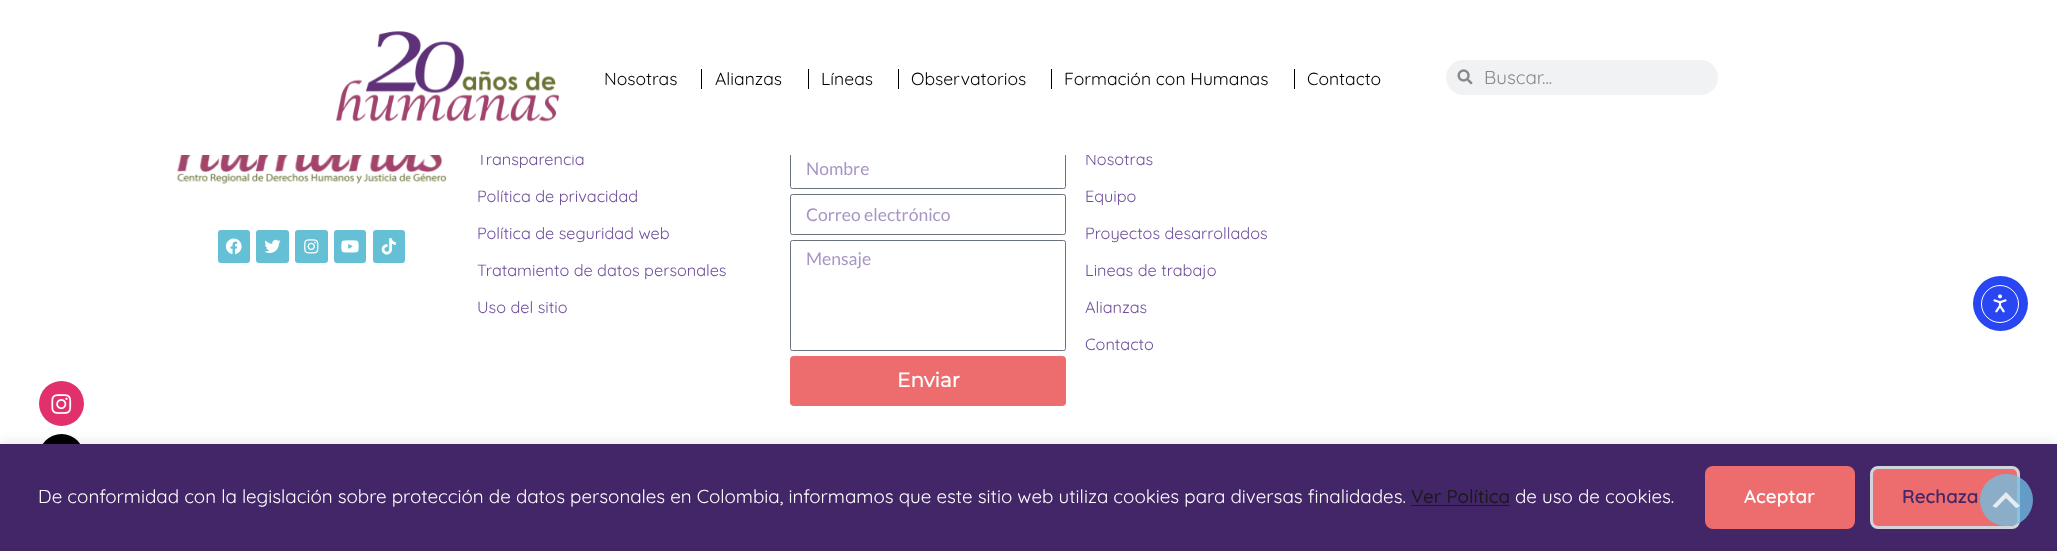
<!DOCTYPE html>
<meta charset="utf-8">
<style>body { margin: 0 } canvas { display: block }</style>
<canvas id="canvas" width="2057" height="551"></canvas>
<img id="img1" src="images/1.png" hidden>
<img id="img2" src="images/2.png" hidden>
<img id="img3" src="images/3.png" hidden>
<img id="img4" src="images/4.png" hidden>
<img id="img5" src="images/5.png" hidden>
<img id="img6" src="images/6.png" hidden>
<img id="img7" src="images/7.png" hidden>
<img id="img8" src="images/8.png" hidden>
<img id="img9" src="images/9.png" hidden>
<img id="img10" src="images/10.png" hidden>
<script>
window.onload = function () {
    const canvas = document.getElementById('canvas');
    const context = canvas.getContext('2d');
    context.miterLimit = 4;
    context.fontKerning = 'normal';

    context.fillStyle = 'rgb(255, 255, 255)';
    context.fillRect(0, 0, 2057, 551);
    context.drawImage(document.getElementById('img1'), 336, 31, 224, 91);
    context.fillStyle = 'rgb(0, 0, 0)';
    context.fillRect(701, 69, 1, 20);
    context.fillRect(808, 69, 1, 20);
    context.fillRect(898, 69, 1, 20);
    context.fillRect(1051, 69, 1, 20);
    context.fillRect(1294, 69, 1, 20);
    context.fillStyle = 'rgb(241, 242, 243)';
    context.beginPath();
    context.roundRect(1446, 60, 272, 35, 17.5);
    context.fill();
    context.drawImage(document.getElementById('img2'), 1457, 69, 16, 16);
    context.fillStyle = 'rgb(225, 48, 108)';
    context.beginPath();
    context.arc(61.5, 403.5, 22.5, 0, 2 * Math.PI);
    context.fill();
    context.drawImage(document.getElementById('img3'), 51, 394, 21, 20);
    context.fillStyle = 'rgb(0, 0, 0)';
    context.beginPath();
    context.arc(61.5, 456.5, 22.5, 0, 2 * Math.PI);
    context.fill();
    context.drawImage(document.getElementById('img4'), 176, 155, 271, 29);
    context.fillStyle = 'rgb(101, 192, 213)';
    context.beginPath();
    context.roundRect(218, 230, 32, 33, 3);
    context.fill();
    context.drawImage(document.getElementById('img5'), 225, 238, 17, 17);
    context.beginPath();
    context.roundRect(256, 230, 33, 33, 3);
    context.fill();
    context.drawImage(document.getElementById('img6'), 264, 239, 17, 14);
    context.beginPath();
    context.roundRect(295, 230, 33, 33, 3);
    context.fill();
    context.drawImage(document.getElementById('img7'), 304, 239, 15, 15);
    context.beginPath();
    context.roundRect(334, 230, 32, 33, 3);
    context.fill();
    context.drawImage(document.getElementById('img8'), 341, 240, 18, 13);
    context.beginPath();
    context.roundRect(373, 230, 32, 33, 3);
    context.fill();
    context.drawImage(document.getElementById('img9'), 381, 238, 15, 17);
    context.beginPath();
    context.roundRect(790.5, 148.5, 275, 40, 2);
    context.strokeStyle = 'rgb(105, 114, 125)';
    context.stroke();
    context.beginPath();
    context.roundRect(790.5, 194.5, 275, 40, 2);
    context.stroke();
    context.beginPath();
    context.roundRect(790.5, 240.5, 275, 110, 2);
    context.stroke();
    context.fillStyle = 'rgb(237, 109, 110)';
    context.beginPath();
    context.roundRect(790, 356, 276, 50, 4);
    context.fill();
    context.fillStyle = 'rgb(40, 71, 243)';
    context.beginPath();
    context.arc(2000.5, 303.5, 27.5, 0, 2 * Math.PI);
    context.fill();
    context.beginPath();
    context.arc(2000, 304, 18.5, 0, 2 * Math.PI);
    context.strokeStyle = 'rgb(255, 255, 255)';
    context.stroke();
    context.drawImage(document.getElementById('img10'), 1993, 294, 14, 19);
    context.fillStyle = 'rgba(0, 0, 0, 0.08)';
    context.filter = 'blur(6px)';
    context.beginPath();
    context.rect(0, 441, 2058, 108);
    context.fill();
    context.filter = 'none';
    context.fillStyle = 'rgb(67, 38, 104)';
    context.fillRect(0, 444, 2057, 107);
    context.fillStyle = 'rgb(26, 26, 26)';
    context.fillRect(1411, 505, 99, 1);
    context.fillStyle = 'rgb(237, 109, 110)';
    context.beginPath();
    context.roundRect(1705, 466, 150, 63, 8);
    context.fill();
    context.beginPath();
    context.roundRect(1871.5, 467.5, 147, 60, 6.5);
    context.fill();
    context.strokeStyle = 'rgb(209, 213, 219)';
    context.lineWidth = 3;
    context.stroke();
    context.fillStyle = 'rgba(110, 193, 228, 0.77)';
    context.beginPath();
    context.roundRect(1980, 474, 53, 52, 26);
    context.fill();
    context.fillStyle = 'rgba(255, 255, 255, 0.77)';
    context.beginPath();
    context.moveTo(2016, 508);
    context.lineTo(2006, 498);
    context.lineTo(1996, 508);
    context.lineTo(1992.5, 506);
    context.lineTo(2006, 492);
    context.lineTo(2020, 506);
    context.closePath();
    context.fill();
    context.font = '17.5px Quicksand';
    context.fillStyle = 'rgb(0, 0, 0)';
    context.fillText('Nosotras', 604, 85);
    context.fillText('Alianzas', 715, 85);
    context.fillText('Líneas', 821, 85);
    context.fillText('Observatorios', 911, 85);
    context.fillText('Formación con Humanas', 1064, 85);
    context.fillText('Contacto', 1307, 85);
    context.font = '18.75px Quicksand';
    context.fillStyle = 'rgb(134, 138, 142)';
    context.fillText('Buscar...', 1484, 84);
    context.font = '16.25px Quicksand';
    context.fillStyle = 'rgb(110, 78, 155)';
    context.fillText('Transparencia', 477, 165);
    context.fillText('Política de privacidad', 477, 202);
    context.fillText('Política de seguridad web', 477, 239);
    context.fillText('Tratamiento de datos personales', 477, 276);
    context.fillText('Uso del sitio', 477, 313);
    context.font = '17.5px Lato';
    context.fillStyle = 'rgb(168, 149, 195)';
    context.fillText('Nombre', 806, 175);
    context.fillText('Correo electrónico', 806, 221);
    context.fillText('Mensaje', 806, 265);
    context.font = 'bold 20px Montserrat';
    context.fillStyle = 'rgb(255, 255, 255)';
    context.fillText('Enviar', 897, 387);
    context.font = '16.25px Quicksand';
    context.fillStyle = 'rgb(110, 78, 155)';
    context.fillText('Nosotras', 1085, 165);
    context.fillStyle = 'rgb(255, 255, 255)';
    context.fillRect(477, 148, 651, 7);
    context.fillStyle = 'rgb(110, 78, 155)';
    context.fillText('Equipo', 1085, 202);
    context.fillText('Proyectos desarrollados', 1085, 239);
    context.fillText('Lineas de trabajo', 1085, 276);
    context.fillText('Alianzas', 1085, 313);
    context.fillText('Contacto', 1085, 350);
    context.font = '18.75px Quicksand';
    context.fillStyle = 'rgb(255, 255, 255)';
    context.fillText('De conformidad con la legislación sobre protección de datos personales en Colombia, informamos que este sitio web utiliza cookies para diversas finalidades.', 38, 503);
    context.font = '500 18.75px Quicksand';
    context.fillStyle = 'rgb(26, 26, 26)';
    context.fillText('Ver Política', 1411, 503);
    context.font = '18.75px Quicksand';
    context.fillStyle = 'rgb(255, 255, 255)';
    context.fillText('de uso de cookies.', 1515, 503);
    context.font = '600 18.75px Quicksand';
    context.fillText('Aceptar', 1744, 503);
    context.fillStyle = 'rgb(67, 38, 104)';
    context.fillText('Rechaza', 1902, 503);
};
</script>
